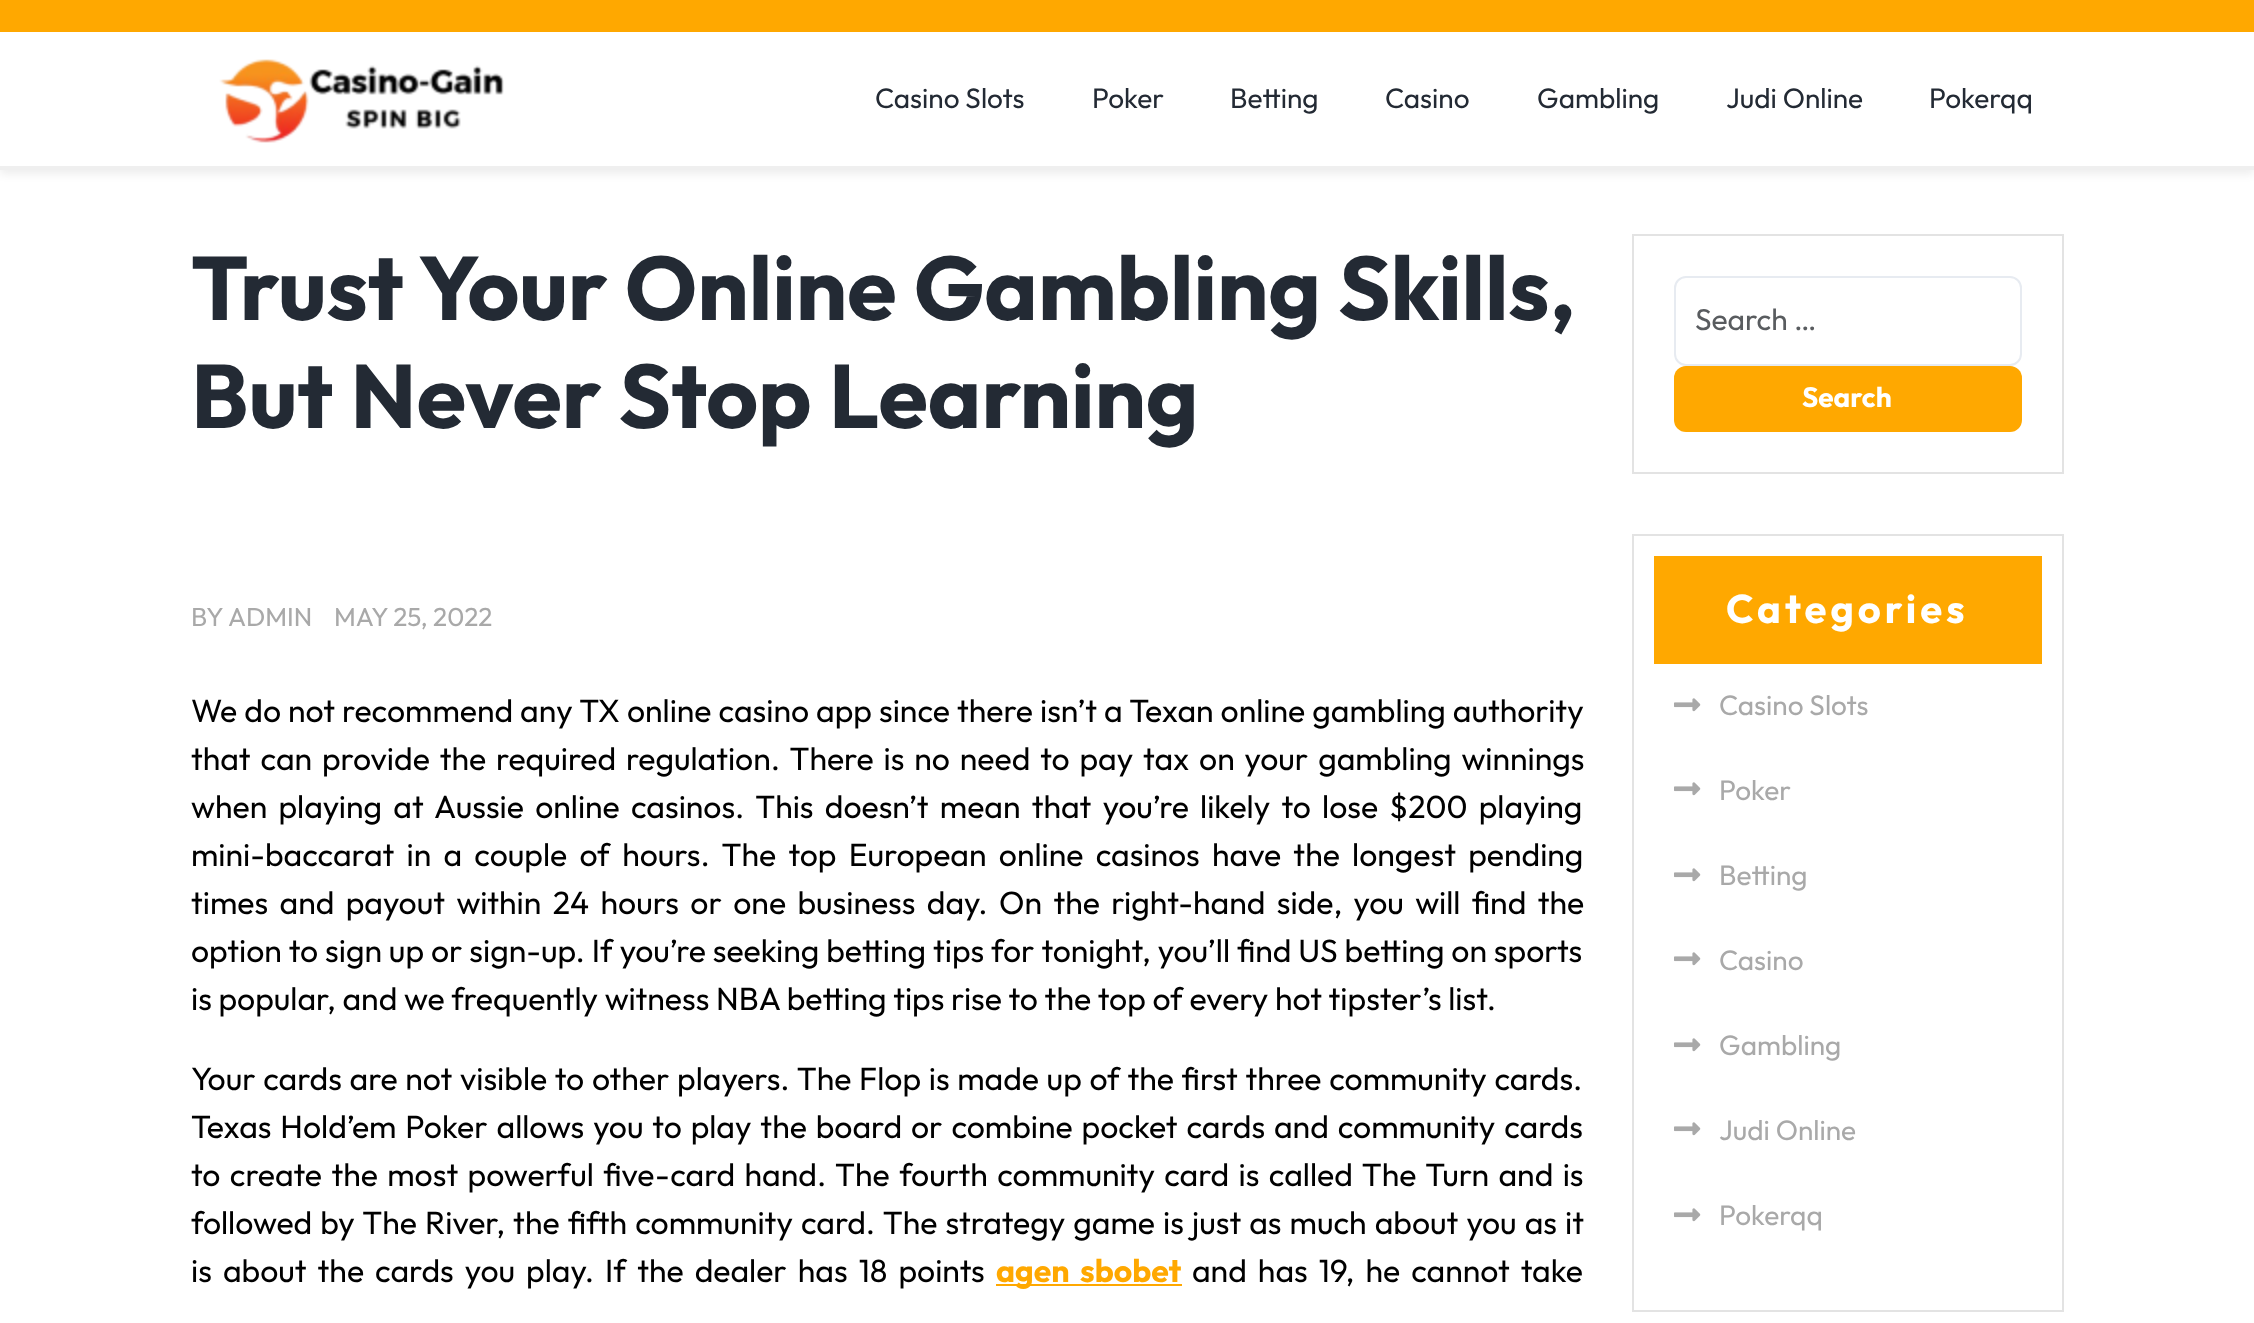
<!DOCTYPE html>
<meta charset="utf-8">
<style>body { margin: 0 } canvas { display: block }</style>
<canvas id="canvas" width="2254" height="1323"></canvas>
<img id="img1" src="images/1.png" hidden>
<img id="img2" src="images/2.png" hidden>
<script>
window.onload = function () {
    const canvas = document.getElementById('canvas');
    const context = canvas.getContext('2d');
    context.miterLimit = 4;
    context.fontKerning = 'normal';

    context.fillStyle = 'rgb(255, 255, 255)';
    context.fillRect(0, 0, 2254, 1323);
    context.fillStyle = 'rgba(0, 0, 0, 0.07)';
    context.filter = 'blur(4px)';
    context.beginPath();
    context.rect(0, 4, 2254, 170);
    context.fill();
    context.filter = 'none';
    context.fillStyle = 'rgb(255, 255, 255)';
    context.fillRect(0, 32, 2254, 134);
    context.fillStyle = 'rgb(255, 168, 0)';
    context.fillRect(0, 0, 2254, 32);
    context.fillStyle = 'rgb(239, 239, 239)';
    context.fillRect(0, 166, 2254, 4);
    context.drawImage(document.getElementById('img1'), 219, 59, 285, 84);
    context.fillStyle = 'rgb(255, 168, 0)';
    context.fillRect(996, 1284, 186, 2);
    context.strokeStyle = 'rgb(227, 227, 227)';
    context.lineWidth = 2;
    context.strokeRect(1633, 235, 430, 238);
    context.beginPath();
    context.roundRect(1675, 277, 346, 88, 11);
    context.strokeStyle = 'rgb(231, 235, 241)';
    context.stroke();
    context.beginPath();
    context.roundRect(1674, 366, 348, 66, 12);
    context.fill();
    context.strokeStyle = 'rgb(227, 227, 227)';
    context.strokeRect(1633, 535, 430, 776);
    context.fillRect(1654, 556, 388, 108);
    context.drawImage(document.getElementById('img2'), 1674, 698, 27, 14);
    context.drawImage(document.getElementById('img2'), 1674, 782, 27, 14);
    context.drawImage(document.getElementById('img2'), 1674, 868, 27, 14);
    context.drawImage(document.getElementById('img2'), 1674, 952, 27, 14);
    context.drawImage(document.getElementById('img2'), 1674, 1038, 27, 14);
    context.drawImage(document.getElementById('img2'), 1674, 1122, 27, 14);
    context.drawImage(document.getElementById('img2'), 1674, 1208, 27, 14);
    context.font = '28px Outfit';
    context.fillStyle = 'rgb(35, 42, 52)';
    context.fillText('Casino Slots', 875, 108);
    context.fillText('Poker', 1092, 108);
    context.fillText('Betting', 1230, 108);
    context.fillText('Casino', 1385, 108);
    context.fillText('Gambling', 1537, 108);
    context.fillText('Judi Online', 1726, 108);
    context.fillText('Pokerqq', 1929, 108);
    context.font = 'bold 90px Outfit';
    context.fillText('Trust Your Online Gambling Skills,', 191, 320);
    context.fillText('But Never Stop Learning', 191, 428);
    context.font = '26px Outfit';
    context.fillStyle = 'rgb(169, 169, 169)';
    context.fillText('BY', 191, 626);
    context.fillText('ADMIN', 228, 626);
    context.fillText('MAY 25, 2022', 334, 626);
    context.wordSpacing = '0.4px';
    context.font = '32px Outfit';
    context.fillStyle = 'rgb(0, 0, 0)';
    context.fillText('We do not recommend any TX online casino app since there isn’t a Texan online gambling authority', 191, 722);
    context.wordSpacing = '3.25px';
    context.fillText('that can provide the required regulation. There is no need to pay tax on your gambling winnings', 191, 770);
    context.wordSpacing = '4.6px';
    context.fillText('when playing at Aussie online casinos. This doesn’t mean that you’re likely to lose $200 playing', 191, 818);
    context.wordSpacing = '5.6px';
    context.fillText('mini-baccarat in a couple of hours. The top European online casinos have the longest pending', 191, 866);
    context.wordSpacing = '4.75px';
    context.fillText('times and payout within 24 hours or one business day. On the right-hand side, you will find the', 191, 914);
    context.wordSpacing = '0.25px';
    context.fillText('option to sign up or sign-up. If you’re seeking betting tips for tonight, you’ll find US betting on sports', 191, 962);
    context.wordSpacing = '0px';
    context.fillText('is popular, and we frequently witness NBA betting tips rise to the top of every hot tipster’s list.', 191, 1010);
    context.wordSpacing = '1px';
    context.fillText('Your cards are not visible to other players. The Flop is made up of the first three community cards.', 191, 1090);
    context.wordSpacing = '2.25px';
    context.fillText('Texas Hold’em Poker allows you to play the board or combine pocket cards and community cards', 191, 1138);
    context.wordSpacing = '2.75px';
    context.fillText('to create the most powerful five-card hand. The fourth community card is called The Turn and is', 191, 1186);
    context.wordSpacing = '1.4px';
    context.fillText('followed by The River, the fifth community card. The strategy game is just as much about you as it', 191, 1234);
    context.wordSpacing = '4.4px';
    context.fillText('is about the cards you play. If the dealer has 18 points', 191, 1282);
    context.font = 'bold 32px Outfit';
    context.fillStyle = 'rgb(255, 168, 0)';
    context.fillText('agen sbobet', 996, 1282);
    context.font = '32px Outfit';
    context.fillStyle = 'rgb(0, 0, 0)';
    context.fillText('and has 19, he cannot take', 1192, 1282);
    context.wordSpacing = '0px';
    context.font = '30px Outfit';
    context.fillStyle = 'rgb(89, 92, 95)';
    context.fillText('Search …', 1695, 330);
    context.font = 'bold 28px Outfit';
    context.fillStyle = 'rgb(255, 255, 255)';
    context.fillText('Search', 1802, 407);
    context.letterSpacing = '4px';
    context.font = 'bold 40px Outfit';
    context.fillText('Categories', 1726, 623);
    context.letterSpacing = '0px';
    context.font = '28px Outfit';
    context.fillStyle = 'rgb(169, 169, 169)';
    context.fillText('Casino Slots', 1719, 715);
    context.fillText('Poker', 1719, 800);
    context.fillText('Betting', 1719, 885);
    context.fillText('Casino', 1719, 970);
    context.fillText('Gambling', 1719, 1055);
    context.fillText('Judi Online', 1719, 1140);
    context.fillText('Pokerqq', 1719, 1225);
};
</script>
